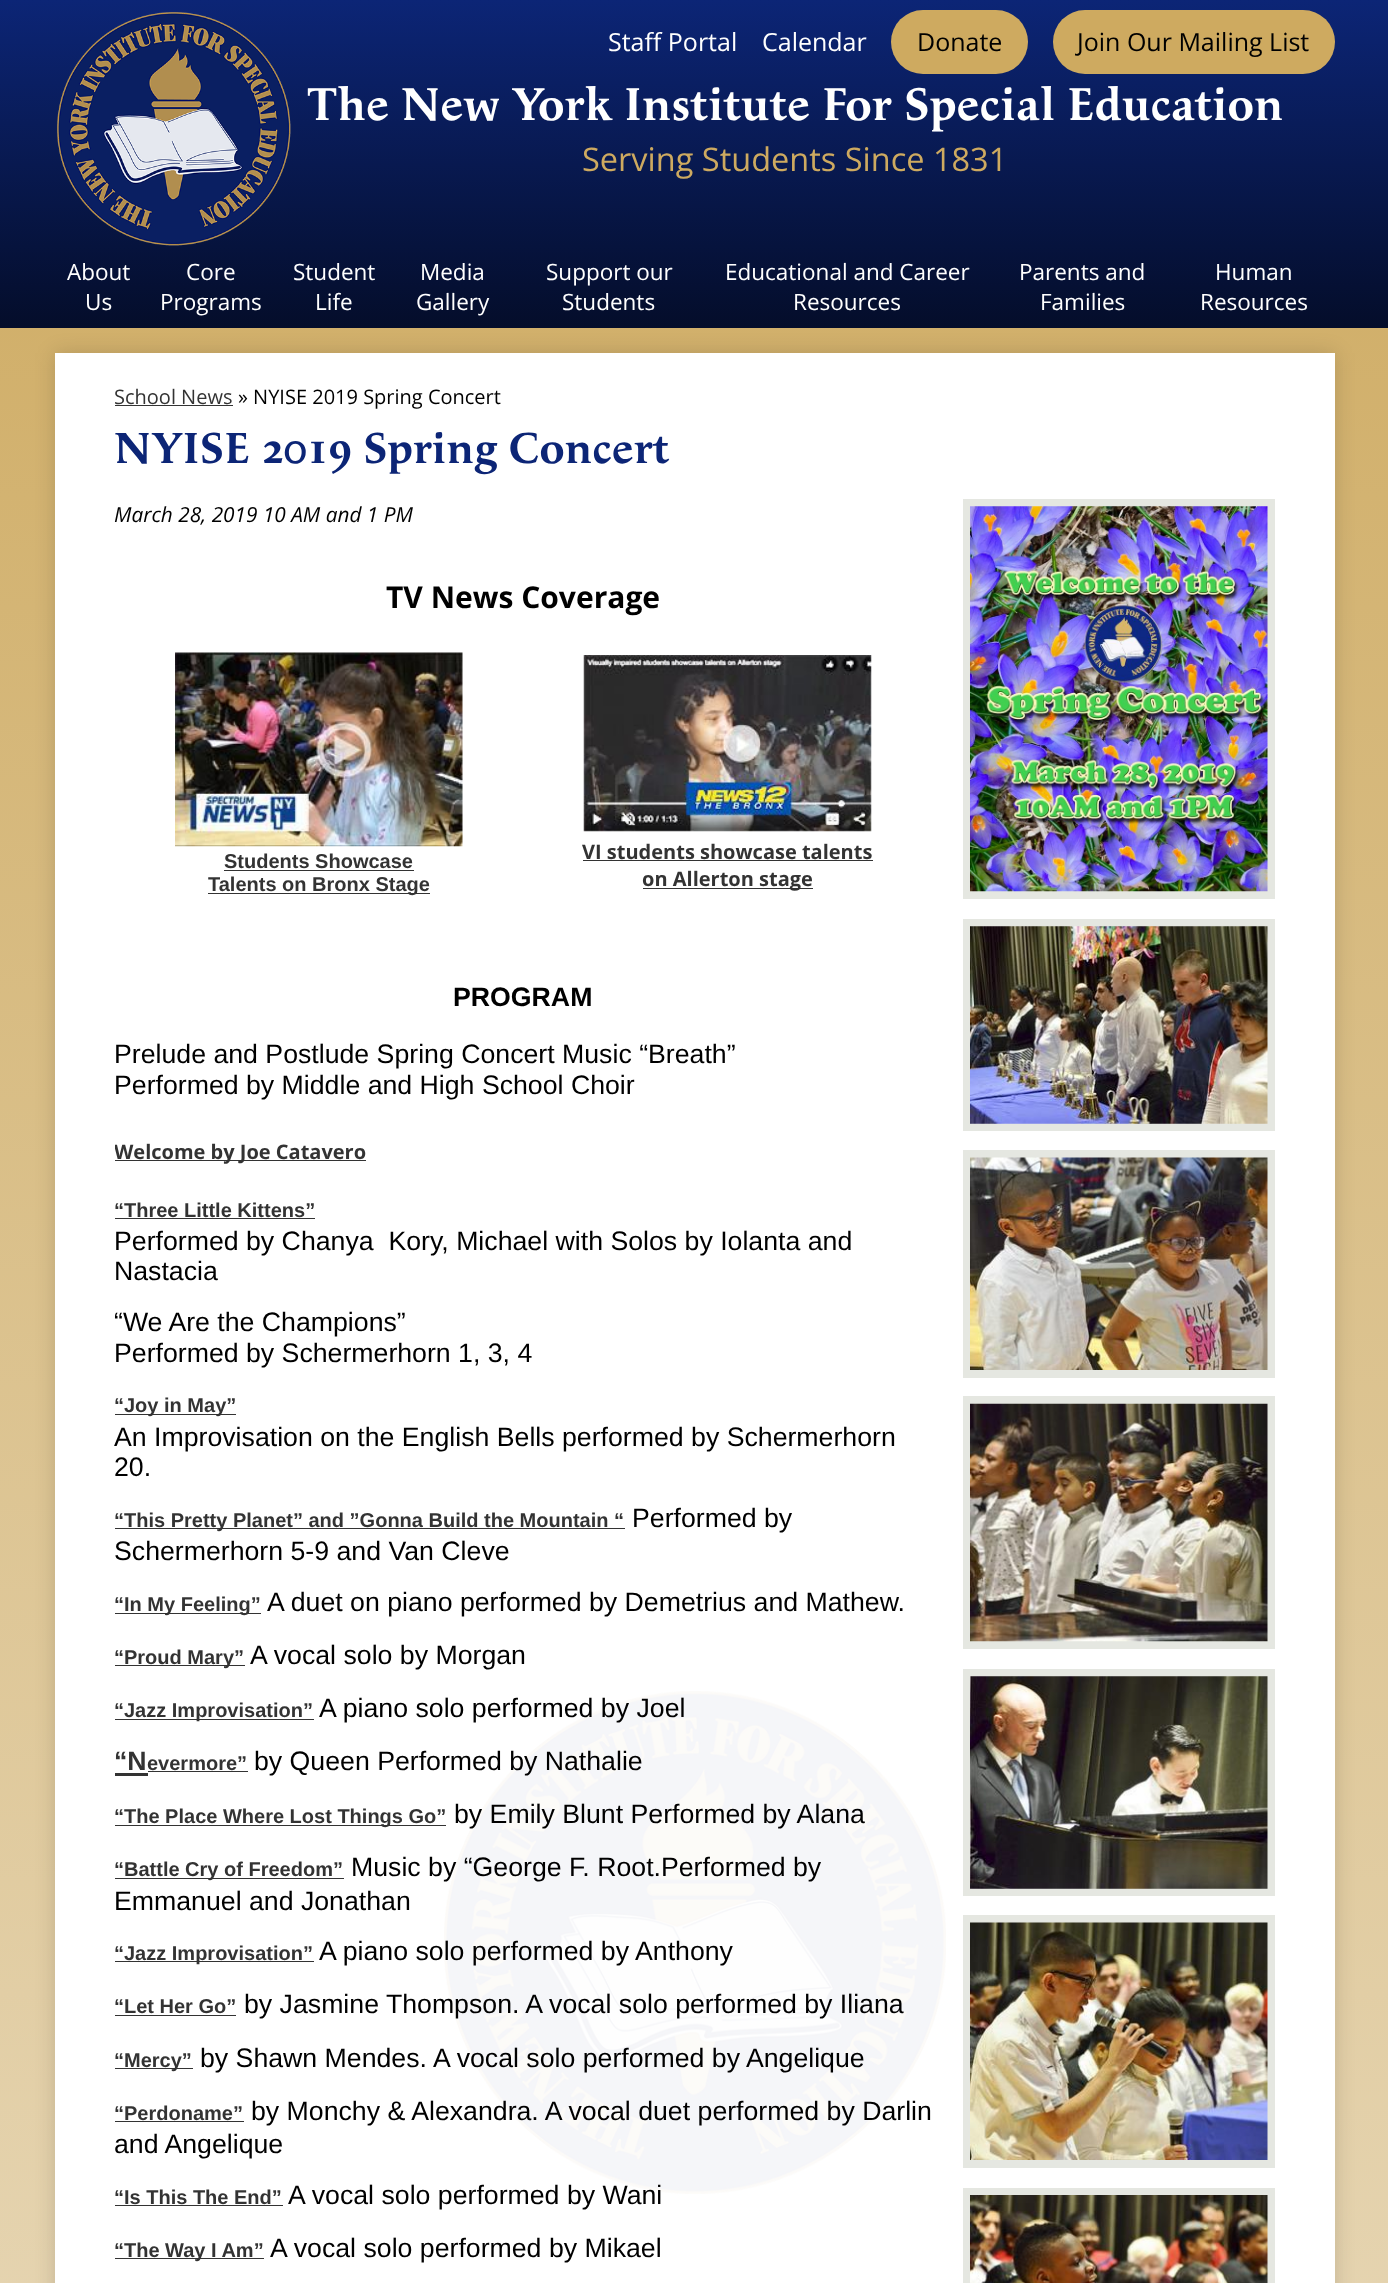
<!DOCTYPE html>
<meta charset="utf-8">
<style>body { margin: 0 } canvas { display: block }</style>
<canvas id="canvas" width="1388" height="2283"></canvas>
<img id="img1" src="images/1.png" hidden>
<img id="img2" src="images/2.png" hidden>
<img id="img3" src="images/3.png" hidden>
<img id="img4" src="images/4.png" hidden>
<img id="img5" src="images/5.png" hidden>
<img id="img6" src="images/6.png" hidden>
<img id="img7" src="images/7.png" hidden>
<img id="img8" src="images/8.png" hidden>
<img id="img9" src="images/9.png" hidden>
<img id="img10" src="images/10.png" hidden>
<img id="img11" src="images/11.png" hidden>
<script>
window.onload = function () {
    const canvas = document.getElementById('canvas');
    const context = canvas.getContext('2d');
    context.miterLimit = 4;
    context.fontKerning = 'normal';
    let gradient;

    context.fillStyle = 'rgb(255, 255, 255)';
    context.fillRect(0, 0, 1388, 2283);
    gradient = context.createLinearGradient(694, 0, 694, 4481);
    gradient.addColorStop(0, 'rgb(206, 170, 96)');
    gradient.addColorStop(1, 'rgb(251, 251, 251)');
    context.fillStyle = gradient;
    context.fillRect(0, 328, 1388, 1955);
    context.fillStyle = 'rgba(0, 0, 0, 0.15)';
    context.filter = 'blur(10px)';
    context.beginPath();
    context.rect(55, 353, 1280, 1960);
    context.fill();
    context.filter = 'none';
    gradient = context.createLinearGradient(694, 0, 694, 328);
    gradient.addColorStop(0, 'rgb(12, 37, 118)');
    gradient.addColorStop(1, 'rgb(4, 13, 42)');
    context.fillStyle = gradient;
    context.fillRect(0, 0, 1388, 328);
    context.fillStyle = 'rgb(206, 170, 96)';
    context.beginPath();
    context.roundRect(891, 10, 137, 64, 32);
    context.fill();
    context.beginPath();
    context.roundRect(1053, 10, 282, 64, 32);
    context.fill();
    context.drawImage(document.getElementById('img1'), 57, 12, 234, 234);
    context.fillStyle = 'rgb(255, 255, 255)';
    context.fillRect(55, 353, 1280, 1930);
    context.drawImage(document.getElementById('img2'), 444, 1691, 502, 503);
    context.fillStyle = 'rgb(51, 51, 51)';
    context.fillRect(115, 405, 118, 1);
    context.drawImage(document.getElementById('img3'), 175, 652, 288, 195);
    context.fillRect(224, 870, 190, 1);
    context.fillRect(208, 893, 222, 1);
    context.drawImage(document.getElementById('img4'), 583, 655, 289, 177);
    context.fillRect(583, 860, 290, 1);
    context.fillRect(643, 888, 170, 1);
    context.fillRect(115, 1160, 251, 1);
    context.fillRect(115, 1218, 200, 1);
    context.fillRect(115, 1414, 121, 1);
    context.fillRect(115, 1528, 510, 1);
    context.fillRect(115, 1613, 146, 1);
    context.fillRect(115, 1665, 130, 1);
    context.fillRect(115, 1719, 199, 1);
    context.fillRect(115, 1773, 33, 3);
    context.fillRect(148, 1771, 100, 1);
    context.fillRect(115, 1825, 331, 1);
    context.fillRect(115, 1878, 229, 1);
    context.fillRect(115, 1961, 199, 1);
    context.fillRect(115, 2015, 121, 1);
    context.fillRect(115, 2068, 78, 1);
    context.fillRect(115, 2121, 129, 1);
    context.fillRect(115, 2205, 168, 1);
    context.fillRect(115, 2258, 149, 1);
    context.strokeStyle = 'rgb(229, 231, 225)';
    context.lineWidth = 8;
    context.strokeRect(967, 503, 304, 392);
    context.drawImage(document.getElementById('img5'), 970, 506, 298, 386);
    context.strokeRect(967, 923, 304, 204);
    context.drawImage(document.getElementById('img6'), 970, 926, 298, 198);
    context.strokeRect(967, 1154, 304, 220);
    context.drawImage(document.getElementById('img7'), 970, 1157, 298, 213);
    context.strokeRect(967, 1400, 304, 245);
    context.drawImage(document.getElementById('img8'), 970, 1403, 298, 239);
    context.strokeRect(967, 1673, 304, 219);
    context.drawImage(document.getElementById('img9'), 970, 1676, 298, 213);
    context.strokeRect(967, 1919, 304, 245);
    context.drawImage(document.getElementById('img10'), 970, 1922, 298, 238);
    context.strokeRect(967, 2192, 304, 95);
    context.drawImage(document.getElementById('img11'), 970, 2195, 298, 88);
    context.font = '25px Open Sans';
    context.fillStyle = 'rgb(255, 255, 255)';
    context.fillText('Staff Portal', 608, 51);
    context.fillText('Calendar', 762, 51);
    context.fillStyle = 'rgb(0, 0, 0)';
    context.fillText('Donate', 917, 51);
    context.fillText('Join Our Mailing List', 1077, 51);
    context.font = 'bold 47.5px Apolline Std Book';
    context.fillStyle = 'rgb(255, 255, 255)';
    context.fillText('The New York Institute For Special Education', 307, 120);
    context.font = '32.5px Open Sans';
    context.fillStyle = 'rgb(206, 170, 96)';
    context.fillText('Serving Students Since 1831', 582, 171);
    context.font = '22.5px Open Sans';
    context.fillStyle = 'rgb(255, 255, 255)';
    context.fillText('About', 67, 280);
    context.fillText('Us', 85, 310);
    context.fillText('Core', 186, 280);
    context.fillText('Programs', 160, 310);
    context.fillText('Student', 293, 280);
    context.fillText('Life', 315, 310);
    context.fillText('Media', 420, 280);
    context.fillText('Gallery', 416, 310);
    context.fillText('Support our', 546, 280);
    context.fillText('Students', 562, 310);
    context.fillText('Educational and Career', 725, 280);
    context.fillText('Resources', 793, 310);
    context.fillText('Parents and', 1019, 280);
    context.fillText('Families', 1040, 310);
    context.fillText('Human', 1215, 280);
    context.fillText('Resources', 1200, 310);
    context.font = '20px Open Sans';
    context.fillStyle = 'rgb(51, 51, 51)';
    context.fillText('School News', 114, 404);
    context.fillStyle = 'rgb(0, 0, 0)';
    context.fillText('» NYISE 2019 Spring Concert', 238, 404);
    context.font = 'bold 45px Apolline Std Book';
    context.fillStyle = 'rgb(12, 37, 118)';
    context.fillText('NYISE 2019 Spring Concert', 114, 463);
    context.font = 'italic 20.8px Open Sans';
    context.fillStyle = 'rgb(0, 0, 0)';
    context.fillText('March 28, 2019 10 AM and 1 PM', 114, 522);
    context.font = 'bold 30px Open Sans';
    context.fillText('TV News Coverage', 386, 608);
    context.font = 'bold 20px Liberation Sans';
    context.fillStyle = 'rgb(51, 51, 51)';
    context.fillText('Students Showcase', 224, 868);
    context.fillText('Talents on Bronx Stage', 208, 891);
    context.font = 'bold 20px Open Sans';
    context.fillText('VI students showcase talents', 582, 859);
    context.fillText('on Allerton stage', 642, 886);
    context.font = 'bold 26.7px Liberation Sans';
    context.fillStyle = 'rgb(0, 0, 0)';
    context.fillText('PROGRAM', 453, 1006);
    context.font = '26.7px Liberation Sans';
    context.fillText('Prelude and Postlude Spring Concert Music “Breath”', 114, 1063);
    context.fillText('Performed by Middle and High School Choir', 114, 1094);
    context.save();
    context.beginPath();
    context.rect(115, 499, 818, 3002);
    context.clip();
    context.font = 'bold 20px Open Sans';
    context.fillStyle = 'rgb(51, 51, 51)';
    context.fillText('Welcome by Joe Catavero', 114, 1159);
    context.restore();
    context.font = 'bold 20px Liberation Sans';
    context.fillStyle = 'rgb(51, 51, 51)';
    context.fillText('“Three Little Kittens”', 114, 1217);
    context.font = '26.7px Liberation Sans';
    context.fillStyle = 'rgb(0, 0, 0)';
    context.fillText('Performed by Chanya  Kory, Michael with Solos by Iolanta and', 114, 1250);
    context.fillText('Nastacia', 114, 1280);
    context.fillText('“We Are the Champions”', 114, 1331);
    context.fillText('Performed by Schermerhorn 1, 3, 4', 114, 1362);
    context.font = 'bold 20px Liberation Sans';
    context.fillStyle = 'rgb(51, 51, 51)';
    context.fillText('“Joy in May”', 114, 1412);
    context.font = '26.7px Liberation Sans';
    context.fillStyle = 'rgb(0, 0, 0)';
    context.fillText('An Improvisation on the English Bells performed by Schermerhorn', 114, 1446);
    context.fillText('20.', 114, 1476);
    context.font = 'bold 20px Liberation Sans';
    context.fillStyle = 'rgb(51, 51, 51)';
    context.fillText('“This Pretty Planet” and ”Gonna Build the Mountain “', 114, 1527);
    context.font = '26.7px Liberation Sans';
    context.fillStyle = 'rgb(0, 0, 0)';
    context.fillText('Performed by', 632, 1527);
    context.fillText('Schermerhorn 5-9 and Van Cleve', 114, 1560);
    context.font = 'bold 20px Liberation Sans';
    context.fillStyle = 'rgb(51, 51, 51)';
    context.fillText('“In My Feeling”', 114, 1611);
    context.font = '26.7px Liberation Sans';
    context.fillStyle = 'rgb(0, 0, 0)';
    context.fillText('A duet on piano performed by Demetrius and Mathew.', 267, 1611);
    context.font = 'bold 20px Liberation Sans';
    context.fillStyle = 'rgb(51, 51, 51)';
    context.fillText('“Proud Mary”', 114, 1664);
    context.font = '26.7px Liberation Sans';
    context.fillStyle = 'rgb(0, 0, 0)';
    context.fillText('A vocal solo by Morgan', 250, 1664);
    context.font = 'bold 20px Liberation Sans';
    context.fillStyle = 'rgb(51, 51, 51)';
    context.fillText('“Jazz Improvisation”', 114, 1717);
    context.font = '26.7px Liberation Sans';
    context.fillStyle = 'rgb(0, 0, 0)';
    context.fillText('A piano solo performed by Joel', 319, 1717);
    context.font = 'bold 26.7px Liberation Sans';
    context.fillStyle = 'rgb(51, 51, 51)';
    context.fillText('“N', 114, 1770);
    context.font = 'bold 20px Liberation Sans';
    context.fillText('evermore”', 147, 1770);
    context.font = '26.7px Liberation Sans';
    context.fillStyle = 'rgb(0, 0, 0)';
    context.fillText('by Queen Performed by Nathalie', 254, 1770);
    context.font = 'bold 20px Liberation Sans';
    context.fillStyle = 'rgb(51, 51, 51)';
    context.fillText('“The Place Where Lost Things Go”', 114, 1823);
    context.font = '26.7px Liberation Sans';
    context.fillStyle = 'rgb(0, 0, 0)';
    context.fillText('by Emily Blunt Performed by Alana', 454, 1823);
    context.font = 'bold 20px Liberation Sans';
    context.fillStyle = 'rgb(51, 51, 51)';
    context.fillText('“Battle Cry of Freedom”', 114, 1876);
    context.font = '26.7px Liberation Sans';
    context.fillStyle = 'rgb(0, 0, 0)';
    context.fillText('Music by “George F. Root.Performed by', 351, 1876);
    context.fillText('Emmanuel and Jonathan', 114, 1910);
    context.font = 'bold 20px Liberation Sans';
    context.fillStyle = 'rgb(51, 51, 51)';
    context.fillText('“Jazz Improvisation”', 114, 1960);
    context.font = '26.7px Liberation Sans';
    context.fillStyle = 'rgb(0, 0, 0)';
    context.fillText('A piano solo performed by Anthony', 319, 1960);
    context.font = 'bold 20px Liberation Sans';
    context.fillStyle = 'rgb(51, 51, 51)';
    context.fillText('“Let Her Go”', 114, 2013);
    context.font = '26.7px Liberation Sans';
    context.fillStyle = 'rgb(0, 0, 0)';
    context.fillText('by Jasmine Thompson. A vocal solo performed by Iliana', 244, 2013);
    context.font = 'bold 20px Liberation Sans';
    context.fillStyle = 'rgb(51, 51, 51)';
    context.fillText('“Mercy”', 114, 2067);
    context.font = '26.7px Liberation Sans';
    context.fillStyle = 'rgb(0, 0, 0)';
    context.fillText('by Shawn Mendes. A vocal solo performed by Angelique', 200, 2067);
    context.font = 'bold 20px Liberation Sans';
    context.fillStyle = 'rgb(51, 51, 51)';
    context.fillText('“Perdoname”', 114, 2120);
    context.font = '26.7px Liberation Sans';
    context.fillStyle = 'rgb(0, 0, 0)';
    context.fillText('by Monchy & Alexandra. A vocal duet performed by Darlin', 251, 2120);
    context.fillText('and Angelique', 114, 2153);
    context.font = 'bold 20px Liberation Sans';
    context.fillStyle = 'rgb(51, 51, 51)';
    context.fillText('“Is This The End”', 114, 2204);
    context.font = '26.7px Liberation Sans';
    context.fillStyle = 'rgb(0, 0, 0)';
    context.fillText('A vocal solo performed by Wani', 288, 2204);
    context.font = 'bold 20px Liberation Sans';
    context.fillStyle = 'rgb(51, 51, 51)';
    context.fillText('“The Way I Am”', 114, 2257);
    context.font = '26.7px Liberation Sans';
    context.fillStyle = 'rgb(0, 0, 0)';
    context.fillText('A vocal solo performed by Mikael', 270, 2257);
};
</script>
